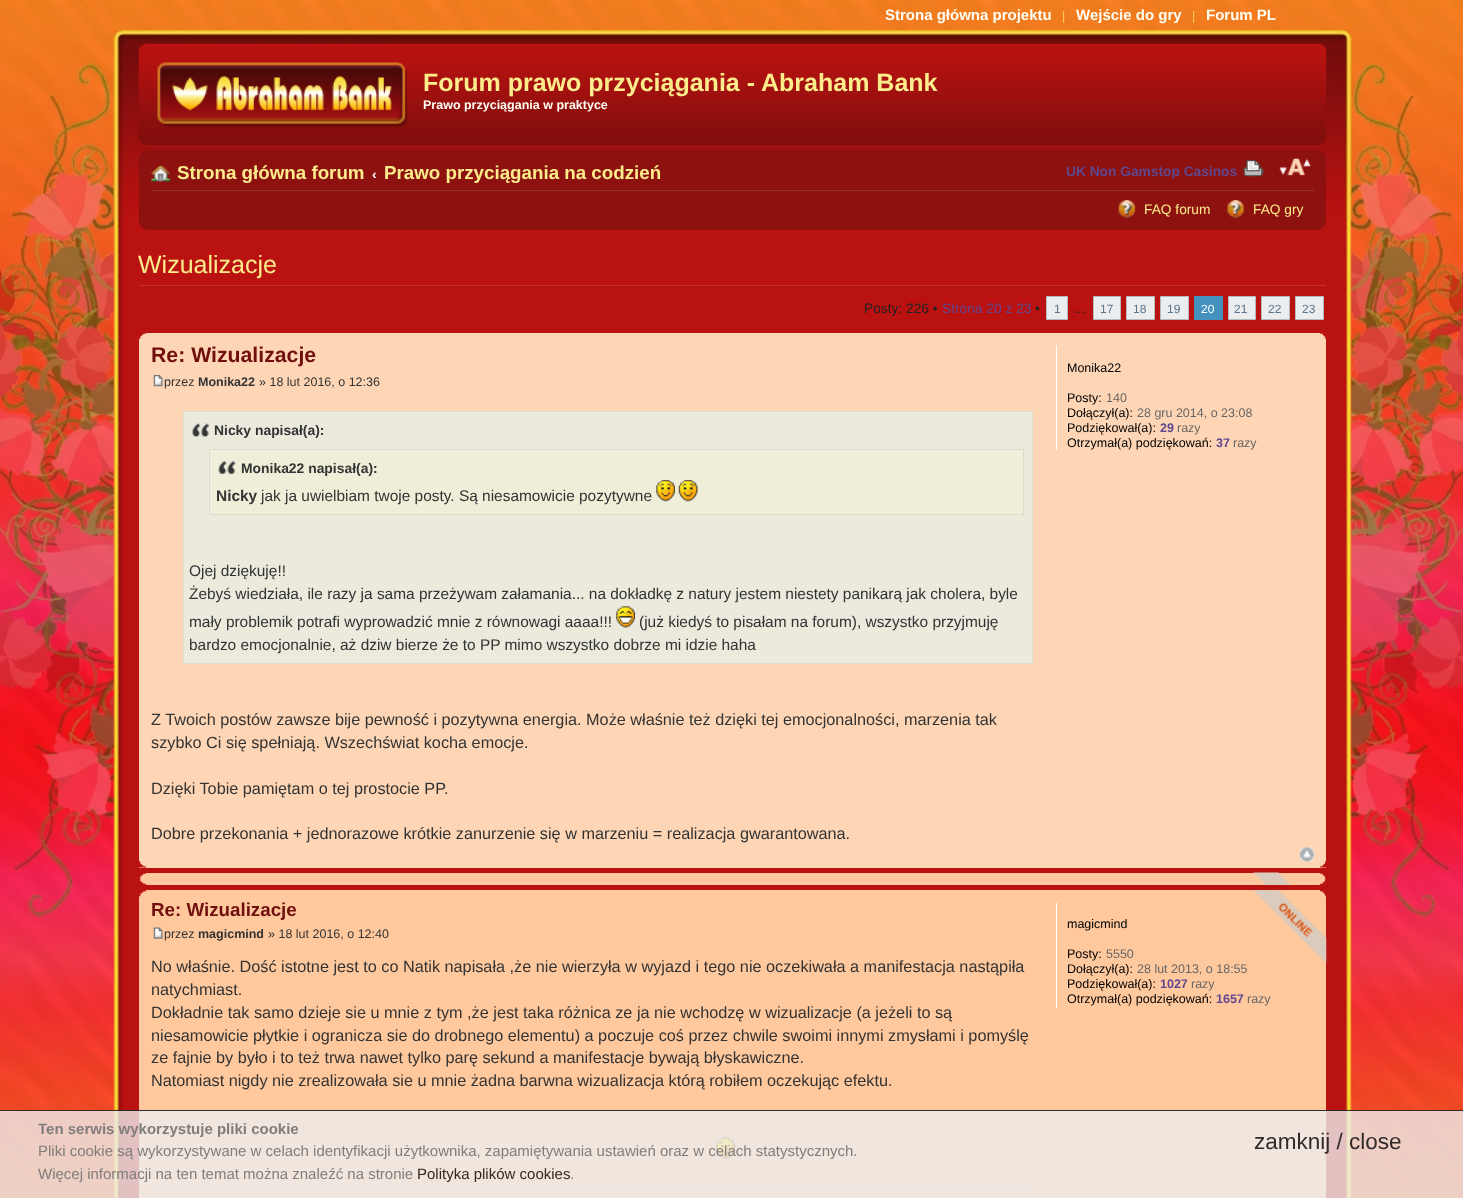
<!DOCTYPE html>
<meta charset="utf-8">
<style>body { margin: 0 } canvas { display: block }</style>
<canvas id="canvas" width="1463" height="1198"></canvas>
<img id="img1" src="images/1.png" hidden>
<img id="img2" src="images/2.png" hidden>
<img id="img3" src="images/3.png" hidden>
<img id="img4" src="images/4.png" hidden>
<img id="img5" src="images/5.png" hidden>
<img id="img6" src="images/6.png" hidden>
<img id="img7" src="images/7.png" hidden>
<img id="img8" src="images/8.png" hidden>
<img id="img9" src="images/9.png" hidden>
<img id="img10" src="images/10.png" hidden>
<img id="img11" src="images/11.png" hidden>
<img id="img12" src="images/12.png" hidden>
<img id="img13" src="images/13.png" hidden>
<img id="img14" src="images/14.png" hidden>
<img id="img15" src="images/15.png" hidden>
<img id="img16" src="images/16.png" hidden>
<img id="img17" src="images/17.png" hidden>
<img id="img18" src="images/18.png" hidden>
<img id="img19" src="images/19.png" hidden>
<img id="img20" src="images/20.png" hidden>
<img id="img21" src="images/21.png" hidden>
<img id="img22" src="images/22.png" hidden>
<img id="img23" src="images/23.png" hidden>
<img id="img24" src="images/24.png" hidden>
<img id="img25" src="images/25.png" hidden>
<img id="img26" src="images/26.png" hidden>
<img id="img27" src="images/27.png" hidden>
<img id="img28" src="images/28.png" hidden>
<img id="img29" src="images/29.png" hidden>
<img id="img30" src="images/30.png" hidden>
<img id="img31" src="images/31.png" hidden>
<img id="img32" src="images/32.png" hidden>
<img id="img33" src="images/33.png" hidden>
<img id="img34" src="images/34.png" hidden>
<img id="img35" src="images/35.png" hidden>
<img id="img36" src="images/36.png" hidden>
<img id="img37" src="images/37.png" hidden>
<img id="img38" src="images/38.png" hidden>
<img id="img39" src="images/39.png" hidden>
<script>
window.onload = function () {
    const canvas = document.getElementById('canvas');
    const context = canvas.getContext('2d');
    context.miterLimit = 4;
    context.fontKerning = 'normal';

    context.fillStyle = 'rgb(255, 255, 255)';
    context.fillRect(0, 0, 1463, 1198);
    context.drawImage(document.getElementById('img1'), 0, 0, 1463, 1198);
    context.drawImage(document.getElementById('img2'), 113, 30, 1239, 1168);
    context.drawImage(document.getElementById('img3'), 113, 30, 1239, 190);
    context.drawImage(document.getElementById('img4'), 138, 43, 1189, 102);
    context.drawImage(document.getElementById('img5'), 138, 43, 7, 6);
    context.drawImage(document.getElementById('img6'), 1321, 43, 6, 6);
    context.drawImage(document.getElementById('img7'), 157, 62, 251, 66);
    context.drawImage(document.getElementById('img8'), 139, 140, 6, 5);
    context.drawImage(document.getElementById('img9'), 1321, 140, 5, 5);
    context.fillStyle = 'rgb(141, 18, 15)';
    context.fillRect(139, 150, 1187, 80);
    context.drawImage(document.getElementById('img10'), 139, 150, 8, 7);
    context.drawImage(document.getElementById('img11'), 1320, 150, 6, 7);
    context.fillStyle = 'rgb(144, 51, 49)';
    context.fillRect(151, 190, 1163, 1);
    context.drawImage(document.getElementById('img12'), 151, 165, 19, 17);
    context.drawImage(document.getElementById('img13'), 1243, 159, 21, 18);
    context.drawImage(document.getElementById('img14'), 1279, 158, 33, 18);
    context.drawImage(document.getElementById('img15'), 1118, 200, 18, 18);
    context.drawImage(document.getElementById('img16'), 1227, 200, 17, 18);
    context.drawImage(document.getElementById('img17'), 139, 223, 8, 7);
    context.drawImage(document.getElementById('img18'), 1320, 223, 6, 7);
    context.fillStyle = 'rgb(187, 51, 51)';
    context.fillRect(139, 285, 1187, 1);
    context.fillStyle = 'rgb(236, 237, 238)';
    context.beginPath();
    context.rect(1046.5, 296.5, 21, 23);
    context.fill();
    context.strokeStyle = 'rgb(180, 186, 192)';
    context.stroke();
    context.beginPath();
    context.rect(1093.5, 296.5, 27, 23);
    context.fill();
    context.stroke();
    context.beginPath();
    context.rect(1126.5, 296.5, 28, 23);
    context.fill();
    context.stroke();
    context.beginPath();
    context.rect(1160.5, 296.5, 28, 23);
    context.fill();
    context.stroke();
    context.fillStyle = 'rgb(70, 146, 191)';
    context.fillRect(1194, 296, 29, 24);
    context.fillStyle = 'rgb(236, 237, 238)';
    context.beginPath();
    context.rect(1228.5, 296.5, 27, 23);
    context.fill();
    context.stroke();
    context.beginPath();
    context.rect(1261.5, 296.5, 28, 23);
    context.fill();
    context.stroke();
    context.beginPath();
    context.rect(1295.5, 296.5, 28, 23);
    context.fill();
    context.stroke();
    context.fillStyle = 'rgb(255, 214, 181)';
    context.fillRect(139, 333, 1187, 535);
    context.drawImage(document.getElementById('img19'), 139, 333, 8, 6);
    context.drawImage(document.getElementById('img20'), 1319, 333, 7, 6);
    context.drawImage(document.getElementById('img21'), 153, 375, 10, 12);
    context.fillStyle = 'rgb(235, 234, 221)';
    context.fillRect(184, 412, 848, 251);
    context.drawImage(document.getElementById('img22'), 192, 423, 18, 14);
    context.strokeStyle = 'rgb(219, 219, 206)';
    context.strokeRect(183.5, 411.5, 849, 252);
    context.fillStyle = 'rgb(239, 238, 217)';
    context.fillRect(210, 450, 813, 64);
    context.drawImage(document.getElementById('img23'), 218, 461, 18, 13);
    context.strokeRect(209.5, 449.5, 814, 65);
    context.drawImage(document.getElementById('img24'), 656, 480, 19, 22);
    context.drawImage(document.getElementById('img25'), 678, 480, 20, 22);
    context.drawImage(document.getElementById('img26'), 616, 606, 19, 22);
    context.fillStyle = 'rgb(255, 255, 255)';
    context.fillRect(1056, 345, 1, 105);
    context.drawImage(document.getElementById('img27'), 1300, 847, 14, 15);
    context.drawImage(document.getElementById('img28'), 139, 861, 8, 7);
    context.drawImage(document.getElementById('img29'), 1319, 861, 7, 7);
    context.fillStyle = 'rgb(255, 200, 157)';
    context.fillRect(139, 873, 1187, 12);
    context.drawImage(document.getElementById('img30'), 1253, 872, 38, 13);
    context.drawImage(document.getElementById('img31'), 139, 873, 8, 6);
    context.drawImage(document.getElementById('img32'), 1319, 873, 7, 6);
    context.drawImage(document.getElementById('img33'), 139, 878, 8, 7);
    context.drawImage(document.getElementById('img34'), 1319, 878, 7, 7);
    context.fillRect(139, 890, 1187, 308);
    context.drawImage(document.getElementById('img35'), 1253, 890, 74, 73);
    context.drawImage(document.getElementById('img36'), 139, 890, 8, 7);
    context.drawImage(document.getElementById('img37'), 1319, 890, 7, 7);
    context.drawImage(document.getElementById('img38'), 153, 927, 10, 12);
    context.drawImage(document.getElementById('img39'), 716, 1137, 19, 22);
    context.fillStyle = 'rgb(204, 204, 204)';
    context.fillRect(151, 1188, 883, 1);
    context.fillStyle = 'rgb(255, 255, 255)';
    context.fillRect(1056, 903, 1, 105);
    context.fillStyle = 'rgba(238, 238, 238, 0.8)';
    context.fillRect(0, 1110, 1463, 88);
    context.fillStyle = 'rgba(0, 0, 0, 0.8)';
    context.fillRect(0, 1110, 1463, 1);
    context.font = 'bold 15px Liberation Sans';
    context.fillStyle = 'rgb(255, 254, 245)';
    context.fillText('Strona główna projektu', 885, 20);
    context.font = '12.5px Liberation Sans';
    context.fillStyle = 'rgb(255, 212, 82)';
    context.fillText('|', 1062, 20);
    context.font = 'bold 15px Liberation Sans';
    context.fillStyle = 'rgb(255, 254, 245)';
    context.fillText('Wejście do gry', 1076, 20);
    context.font = '12.5px Liberation Sans';
    context.fillStyle = 'rgb(255, 212, 82)';
    context.fillText('|', 1192, 20);
    context.font = 'bold 15px Liberation Sans';
    context.fillStyle = 'rgb(255, 254, 245)';
    context.fillText('Forum PL', 1206, 20);
    context.font = 'bold 25px Liberation Sans';
    context.fillStyle = 'rgb(252, 236, 139)';
    context.fillText('Forum prawo przyciągania - Abraham Bank', 423, 91);
    context.font = 'bold 12.5px Liberation Sans';
    context.fillStyle = 'rgb(255, 254, 245)';
    context.fillText('Prawo przyciągania w praktyce', 423, 109);
    context.font = 'bold 18.75px Liberation Sans';
    context.fillStyle = 'rgb(252, 236, 139)';
    context.fillText('Strona główna forum', 177, 179);
    context.font = 'bold 13.75px Liberation Sans';
    context.fillStyle = 'rgb(255, 255, 255)';
    context.fillText('‹', 372, 179);
    context.font = 'bold 18.75px Liberation Sans';
    context.fillStyle = 'rgb(252, 236, 139)';
    context.fillText('Prawo przyciągania na codzień', 384, 179);
    context.font = 'bold 13.75px Liberation Sans';
    context.fillStyle = 'rgb(95, 71, 144)';
    context.fillText('UK Non Gamstop Casinos', 1066, 176);
    context.font = '13.75px Liberation Sans';
    context.fillStyle = 'rgb(252, 236, 139)';
    context.fillText('FAQ forum', 1144, 214);
    context.fillText('FAQ gry', 1253, 214);
    context.font = '25px Liberation Sans';
    context.fillText('Wizualizacje', 138, 273);
    context.font = '13.75px Liberation Sans';
    context.fillStyle = 'rgb(34, 34, 34)';
    context.fillText('Posty: 226 •', 864, 313);
    context.fillStyle = 'rgb(95, 71, 144)';
    context.fillText('Strona 20 z 23', 942, 313);
    context.fillStyle = 'rgb(34, 34, 34)';
    context.fillText('•', 1035, 313);
    context.font = '12px Liberation Sans';
    context.fillStyle = 'rgb(92, 117, 140)';
    context.fillText('1', 1054, 313);
    context.fillText('17', 1100, 313);
    context.fillText('18', 1133, 313);
    context.fillText('19', 1167, 313);
    context.fillStyle = 'rgb(255, 255, 255)';
    context.fillText('20', 1201, 313);
    context.fillStyle = 'rgb(92, 117, 140)';
    context.fillText('21', 1234, 313);
    context.fillText('22', 1268, 313);
    context.fillText('23', 1302, 313);
    context.font = '13.75px Liberation Sans';
    context.fillStyle = 'rgb(34, 34, 34)';
    context.fillText('...', 1074, 313);
    context.font = 'bold 21.25px Liberation Sans';
    context.fillStyle = 'rgb(112, 15, 14)';
    context.fillText('Re: Wizualizacje', 151, 362);
    context.font = '12.5px Liberation Sans';
    context.fillStyle = 'rgb(51, 51, 51)';
    context.fillText('przez', 164, 386);
    context.font = 'bold 12.5px Liberation Sans';
    context.fillText('Monika22', 198, 386);
    context.font = '12.5px Liberation Sans';
    context.fillText('» 18 lut 2016, o 12:36', 259, 386);
    context.font = 'bold 13.9px Liberation Sans';
    context.fillText('Nicky napisał(a):', 214, 435);
    context.fillText('Monika22 napisał(a):', 241, 473);
    context.font = 'bold 15.45px Liberation Sans';
    context.fillText('Nicky', 216, 501);
    context.font = '15.45px Liberation Sans';
    context.fillText('jak ja uwielbiam twoje posty. Są niesamowicie pozytywne', 261, 501);
    context.fillText('Ojej dziękuję!!', 189, 576);
    context.fillText('Żebyś wiedziała, ile razy ja sama przeżywam załamania... na dokładkę z natury jestem niestety panikarą jak cholera, byle', 189, 599);
    context.fillText('mały problemik potrafi wyprowadzić mnie z równowagi aaaa!!!', 189, 627);
    context.fillText('(już kiedyś to pisałam na forum), wszystko przyjmuję', 639, 627);
    context.fillText('bardzo emocjonalnie, aż dziw bierze że to PP mimo wszystko dobrze mi idzie haha', 189, 650);
    context.font = '16.25px Liberation Sans';
    context.fillText('Z Twoich postów zawsze bije pewność i pozytywna energia. Może właśnie też dzięki tej emocjonalności, marzenia tak', 151, 725);
    context.fillText('szybko Ci się spełniają. Wszechświat kocha emocje.', 151, 748);
    context.fillText('Dzięki Tobie pamiętam o tej prostocie PP.', 151, 794);
    context.fillText('Dobre przekonania + jednorazowe krótkie zanurzenie się w marzeniu = realizacja gwarantowana.', 151, 839);
    context.font = '12.5px Liberation Sans';
    context.fillStyle = 'rgb(0, 0, 0)';
    context.fillText('Monika22', 1067, 372);
    context.fillText('Posty:', 1067, 402);
    context.fillStyle = 'rgb(102, 102, 102)';
    context.fillText('140', 1106, 402);
    context.fillStyle = 'rgb(0, 0, 0)';
    context.fillText('Dołączył(a):', 1067, 417);
    context.fillStyle = 'rgb(102, 102, 102)';
    context.fillText('28 gru 2014, o 23:08', 1137, 417);
    context.fillStyle = 'rgb(0, 0, 0)';
    context.fillText('Podziękował(a):', 1067, 432);
    context.font = 'bold 12.5px Liberation Sans';
    context.fillStyle = 'rgb(95, 71, 144)';
    context.fillText('29', 1160, 432);
    context.font = '12.5px Liberation Sans';
    context.fillStyle = 'rgb(102, 102, 102)';
    context.fillText('razy', 1177, 432);
    context.fillStyle = 'rgb(0, 0, 0)';
    context.fillText('Otrzymał(a) podziękowań:', 1067, 447);
    context.font = 'bold 12.5px Liberation Sans';
    context.fillStyle = 'rgb(95, 71, 144)';
    context.fillText('37', 1216, 447);
    context.font = '12.5px Liberation Sans';
    context.fillStyle = 'rgb(102, 102, 102)';
    context.fillText('razy', 1233, 447);
    context.font = 'bold 18.75px Liberation Sans';
    context.fillStyle = 'rgb(112, 15, 14)';
    context.fillText('Re: Wizualizacje', 151, 916);
    context.font = '12.5px Liberation Sans';
    context.fillStyle = 'rgb(51, 51, 51)';
    context.fillText('przez', 164, 938);
    context.font = 'bold 12.5px Liberation Sans';
    context.fillText('magicmind', 198, 938);
    context.font = '12.5px Liberation Sans';
    context.fillText('» 18 lut 2016, o 12:40', 268, 938);
    context.font = '16.25px Liberation Sans';
    context.fillText('No właśnie. Dość istotne jest to co Natik napisała ,że nie wierzyła w wyjazd i tego nie oczekiwała a manifestacja nastąpiła', 151, 972);
    context.fillText('natychmiast.', 151, 995);
    context.fillText('Dokładnie tak samo dzieje sie u mnie z tym ,że jest taka różnica ze ja nie wchodzę w wizualizacje (a jeżeli to są', 151, 1018);
    context.fillText('niesamowicie płytkie i ogranicza sie do drobnego elementu) a poczuje coś przez chwile swoimi innymi zmysłami i pomyślę', 151, 1041);
    context.fillText('ze fajnie by było i to też trwa nawet tylko parę sekund a manifestacje bywają błyskawiczne.', 151, 1063);
    context.fillText('Natomiast nigdy nie zrealizowała sie u mnie żadna barwna wizualizacja którą robiłem oczekując efektu.', 151, 1086);
    context.font = '12.5px Liberation Sans';
    context.fillStyle = 'rgb(0, 0, 0)';
    context.fillText('magicmind', 1067, 928);
    context.fillText('Posty:', 1067, 958);
    context.fillStyle = 'rgb(102, 102, 102)';
    context.fillText('5550', 1106, 958);
    context.fillStyle = 'rgb(0, 0, 0)';
    context.fillText('Dołączył(a):', 1067, 973);
    context.fillStyle = 'rgb(102, 102, 102)';
    context.fillText('28 lut 2013, o 18:55', 1137, 973);
    context.fillStyle = 'rgb(0, 0, 0)';
    context.fillText('Podziękował(a):', 1067, 988);
    context.font = 'bold 12.5px Liberation Sans';
    context.fillStyle = 'rgb(95, 71, 144)';
    context.fillText('1027', 1160, 988);
    context.font = '12.5px Liberation Sans';
    context.fillStyle = 'rgb(102, 102, 102)';
    context.fillText('razy', 1191, 988);
    context.fillStyle = 'rgb(0, 0, 0)';
    context.fillText('Otrzymał(a) podziękowań:', 1067, 1003);
    context.font = 'bold 12.5px Liberation Sans';
    context.fillStyle = 'rgb(95, 71, 144)';
    context.fillText('1657', 1216, 1003);
    context.font = '12.5px Liberation Sans';
    context.fillStyle = 'rgb(102, 102, 102)';
    context.fillText('razy', 1247, 1003);
    context.font = 'bold 15px Liberation Sans';
    context.fillStyle = 'rgb(128, 125, 123)';
    context.fillText('Ten serwis wykorzystuje pliki cookie', 38, 1134);
    context.font = '15px Liberation Sans';
    context.fillText('Pliki cookie są wykorzystywane w celach identyfikacji użytkownika, zapamiętywania ustawień oraz w celach statystycznych.', 38, 1156);
    context.fillText('Więcej informacji na ten temat można znaleźć na stronie', 38, 1179);
    context.fillStyle = 'rgb(51, 40, 31)';
    context.fillText('Polityka plików cookies', 417, 1179);
    context.fillStyle = 'rgb(133, 122, 113)';
    context.fillText('.', 570, 1179);
    context.font = '22.5px Liberation Sans';
    context.fillStyle = 'rgb(48, 43, 42)';
    context.fillText('zamknij / close', 1254, 1149);
};
</script>
